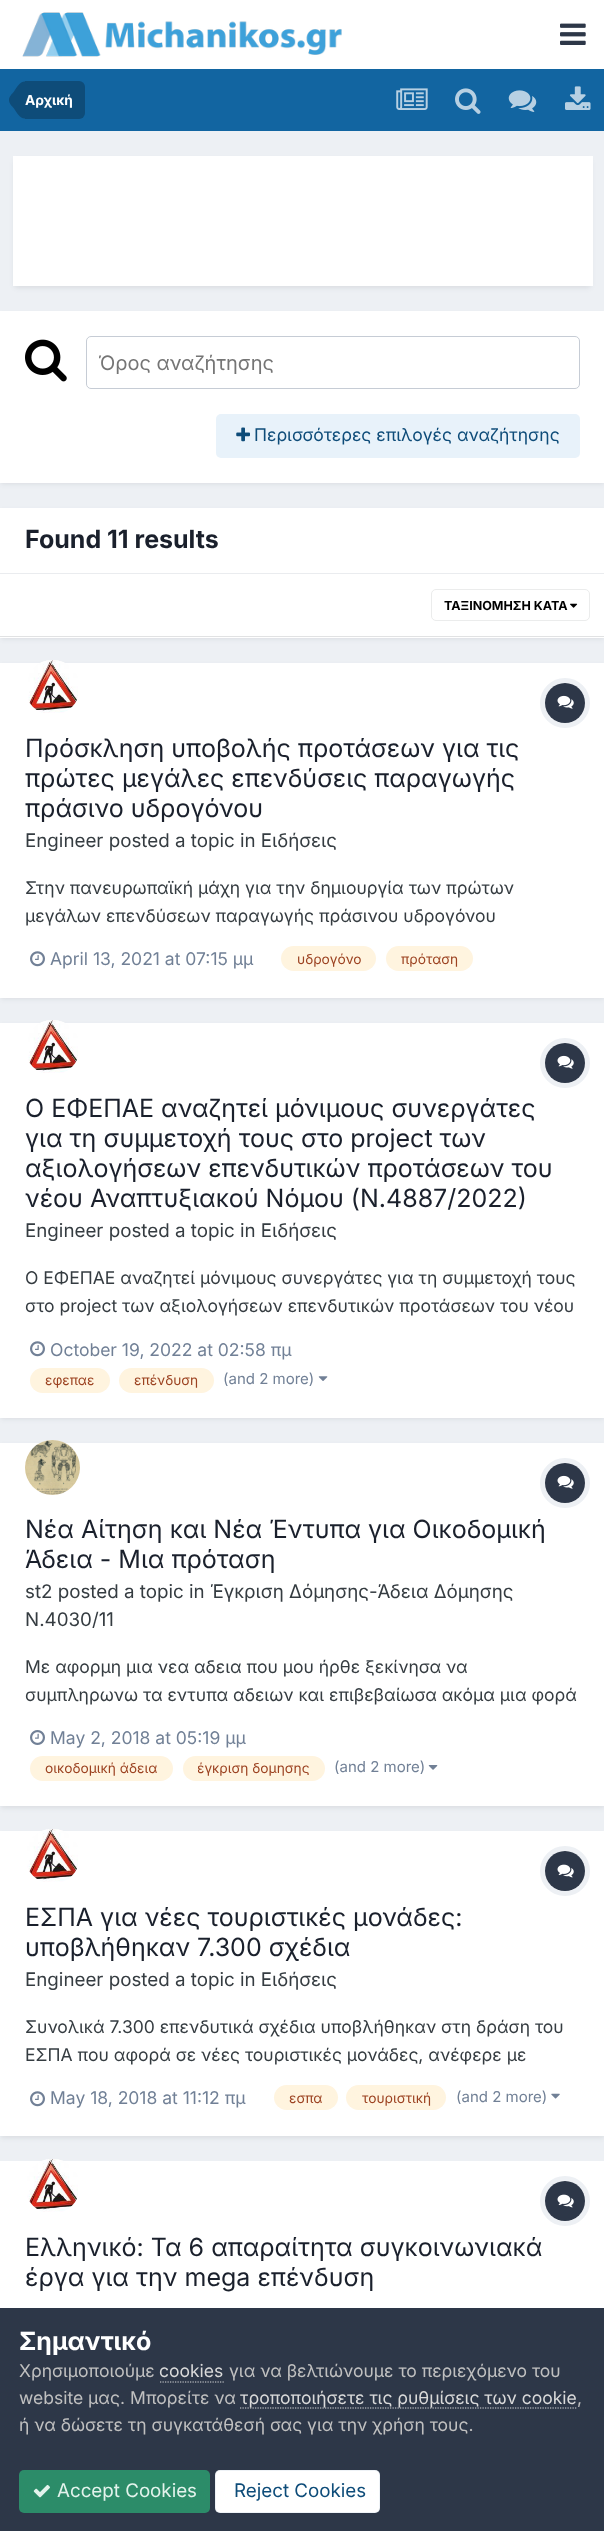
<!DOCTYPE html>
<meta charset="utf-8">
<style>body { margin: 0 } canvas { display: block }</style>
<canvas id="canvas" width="604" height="2531"></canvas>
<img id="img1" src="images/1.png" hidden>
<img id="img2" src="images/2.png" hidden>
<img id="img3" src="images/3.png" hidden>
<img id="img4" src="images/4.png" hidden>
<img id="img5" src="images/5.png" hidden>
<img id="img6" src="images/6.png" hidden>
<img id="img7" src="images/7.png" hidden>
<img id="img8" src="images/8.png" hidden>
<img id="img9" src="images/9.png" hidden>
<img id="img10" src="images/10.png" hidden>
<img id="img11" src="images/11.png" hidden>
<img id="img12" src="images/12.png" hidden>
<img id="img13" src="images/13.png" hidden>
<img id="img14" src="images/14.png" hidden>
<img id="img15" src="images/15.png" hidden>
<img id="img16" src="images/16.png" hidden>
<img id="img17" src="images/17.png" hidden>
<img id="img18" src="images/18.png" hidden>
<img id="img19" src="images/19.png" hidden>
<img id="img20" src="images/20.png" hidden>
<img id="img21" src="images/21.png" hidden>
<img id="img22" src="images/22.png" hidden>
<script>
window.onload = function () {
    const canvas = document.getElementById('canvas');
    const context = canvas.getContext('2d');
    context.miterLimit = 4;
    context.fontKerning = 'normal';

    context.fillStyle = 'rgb(237, 240, 244)';
    context.fillRect(0, 0, 604, 2531);
    context.fillStyle = 'rgb(255, 255, 255)';
    context.fillRect(0, 0, 604, 69);
    context.drawImage(document.getElementById('img1'), 22, 12, 320, 45);
    context.drawImage(document.getElementById('img2'), 560, 23, 26, 22);
    context.fillStyle = 'rgb(18, 101, 161)';
    context.fillRect(0, 69, 604, 62);
    context.fillStyle = 'rgb(14, 76, 121)';
    context.beginPath();
    context.roundRect(25, 81, 60, 38, [0, 6, 6, 0]);
    context.fill();
    context.beginPath();
    context.moveTo(25, 100);
    context.lineTo(25, 118.5);
    context.bezierCurveTo(19.5, 118.5, 16.5, 112, 14, 108.5);
    context.bezierCurveTo(12, 106, 9, 103.5, 9, 100);
    context.closePath();
    context.moveTo(25, 100);
    context.lineTo(9, 100);
    context.bezierCurveTo(9, 96.5, 12, 94, 14, 91.5);
    context.bezierCurveTo(16.5, 88, 19.5, 81.5, 25, 81.5);
    context.closePath();
    context.fill();
    context.drawImage(document.getElementById('img3'), 396, 88, 32, 22);
    context.drawImage(document.getElementById('img4'), 455, 88, 26, 26);
    context.drawImage(document.getElementById('img5'), 508, 90, 29, 22);
    context.drawImage(document.getElementById('img6'), 565, 86, 26, 24);
    context.fillStyle = 'rgba(45, 55, 72, 0.1)';
    context.filter = 'blur(2.5px)';
    context.beginPath();
    context.roundRect(14, 160, 577, 128, 4);
    context.fill();
    context.filter = 'none';
    context.fillStyle = 'rgb(255, 255, 255)';
    context.fillRect(13, 156, 580, 130);
    context.fillStyle = 'rgba(45, 55, 72, 0.1)';
    context.filter = 'blur(2.5px)';
    context.beginPath();
    context.rect(1, 315, 603, 169);
    context.fill();
    context.filter = 'none';
    context.fillStyle = 'rgb(255, 255, 255)';
    context.fillRect(0, 311, 604, 172);
    context.drawImage(document.getElementById('img7'), 25, 339, 42, 43);
    context.beginPath();
    context.roundRect(86.5, 336.5, 493, 52, 4.5);
    context.strokeStyle = 'rgb(198, 204, 213)';
    context.stroke();
    context.fillStyle = 'rgb(232, 242, 250)';
    context.beginPath();
    context.roundRect(216, 414, 364, 44, 5);
    context.fill();
    context.drawImage(document.getElementById('img8'), 236, 427, 14, 15);
    context.fillStyle = 'rgba(45, 55, 72, 0.1)';
    context.filter = 'blur(2.5px)';
    context.beginPath();
    context.rect(1, 511, 603, 128);
    context.fill();
    context.filter = 'none';
    context.fillStyle = 'rgb(255, 255, 255)';
    context.fillRect(0, 508, 604, 130);
    context.fillStyle = 'rgb(234, 236, 239)';
    context.fillRect(0, 573, 604, 1);
    context.fillStyle = 'rgb(225, 226, 227)';
    context.fillRect(0, 636, 604, 1);
    context.drawImage(document.getElementById('img9'), 570, 603, 8, 5);
    context.beginPath();
    context.roundRect(431.5, 589.5, 158, 31, 4.5);
    context.strokeStyle = 'rgb(235, 236, 236)';
    context.stroke();
    context.fillStyle = 'rgba(45, 55, 72, 0.1)';
    context.filter = 'blur(2.5px)';
    context.beginPath();
    context.rect(1, 666, 603, 333);
    context.fill();
    context.filter = 'none';
    context.fillStyle = 'rgb(255, 255, 255)';
    context.fillRect(0, 663, 604, 335);
    context.beginPath();
    context.arc(52.5, 687.5, 27.5, 0, 2 * Math.PI);
    context.fill();
    context.drawImage(document.getElementById('img10'), 28, 660, 50, 53);
    context.beginPath();
    context.arc(565, 703, 22.5, 0, 2 * Math.PI);
    context.strokeStyle = 'rgb(237, 240, 244)';
    context.lineWidth = 5;
    context.stroke();
    context.fillStyle = 'rgb(45, 55, 72)';
    context.beginPath();
    context.arc(565, 703, 20, 0, 2 * Math.PI);
    context.fill();
    context.drawImage(document.getElementById('img11'), 557, 695, 17, 14);
    context.drawImage(document.getElementById('img12'), 30, 951, 15, 16);
    context.fillStyle = 'rgb(255, 244, 223)';
    context.beginPath();
    context.roundRect(281, 946, 95, 25, 12.5);
    context.fill();
    context.beginPath();
    context.roundRect(386, 946, 87, 25, 12.5);
    context.fill();
    context.fillStyle = 'rgba(45, 55, 72, 0.1)';
    context.filter = 'blur(2.5px)';
    context.beginPath();
    context.rect(1, 1026, 603, 393);
    context.fill();
    context.filter = 'none';
    context.fillStyle = 'rgb(255, 255, 255)';
    context.fillRect(0, 1023, 604, 395);
    context.beginPath();
    context.arc(52.5, 1047.5, 27.5, 0, 2 * Math.PI);
    context.fill();
    context.drawImage(document.getElementById('img13'), 28, 1020, 50, 53);
    context.beginPath();
    context.arc(565, 1063, 22.5, 0, 2 * Math.PI);
    context.stroke();
    context.fillStyle = 'rgb(45, 55, 72)';
    context.beginPath();
    context.arc(565, 1063, 20, 0, 2 * Math.PI);
    context.fill();
    context.drawImage(document.getElementById('img11'), 557, 1055, 17, 14);
    context.drawImage(document.getElementById('img12'), 30, 1341, 15, 16);
    context.fillStyle = 'rgb(255, 244, 223)';
    context.beginPath();
    context.roundRect(30, 1368, 80, 25, 12.5);
    context.fill();
    context.beginPath();
    context.roundRect(119, 1368, 95, 25, 12.5);
    context.fill();
    context.drawImage(document.getElementById('img14'), 318, 1376, 10, 5);
    context.fillStyle = 'rgba(45, 55, 72, 0.1)';
    context.filter = 'blur(2.5px)';
    context.beginPath();
    context.rect(1, 1446, 603, 362);
    context.fill();
    context.filter = 'none';
    context.fillStyle = 'rgb(255, 255, 255)';
    context.fillRect(0, 1443, 604, 363);
    context.beginPath();
    context.arc(52.5, 1467.5, 27.5, 0, 2 * Math.PI);
    context.fill();
    context.drawImage(document.getElementById('img15'), 25, 1440, 55, 55);
    context.beginPath();
    context.arc(565, 1483, 22.5, 0, 2 * Math.PI);
    context.stroke();
    context.fillStyle = 'rgb(45, 55, 72)';
    context.beginPath();
    context.arc(565, 1483, 20, 0, 2 * Math.PI);
    context.fill();
    context.drawImage(document.getElementById('img11'), 557, 1475, 17, 14);
    context.drawImage(document.getElementById('img16'), 30, 1730, 15, 15);
    context.fillStyle = 'rgb(255, 244, 223)';
    context.beginPath();
    context.roundRect(30, 1756, 143, 25, 12.5);
    context.fill();
    context.beginPath();
    context.roundRect(183, 1756, 142, 25, 12.5);
    context.fill();
    context.drawImage(document.getElementById('img17'), 428, 1765, 10, 5);
    context.fillStyle = 'rgba(45, 55, 72, 0.1)';
    context.filter = 'blur(2.5px)';
    context.beginPath();
    context.rect(1, 1835, 603, 303);
    context.fill();
    context.filter = 'none';
    context.fillStyle = 'rgb(255, 255, 255)';
    context.fillRect(0, 1831, 604, 305);
    context.beginPath();
    context.arc(52.5, 1856.5, 27.5, 0, 2 * Math.PI);
    context.fill();
    context.drawImage(document.getElementById('img18'), 27, 1829, 51, 53);
    context.beginPath();
    context.arc(565, 1871, 22.5, 0, 2 * Math.PI);
    context.stroke();
    context.fillStyle = 'rgb(45, 55, 72)';
    context.beginPath();
    context.arc(565, 1871, 20, 0, 2 * Math.PI);
    context.fill();
    context.drawImage(document.getElementById('img19'), 557, 1864, 17, 14);
    context.drawImage(document.getElementById('img12'), 30, 2091, 15, 16);
    context.fillStyle = 'rgb(255, 244, 223)';
    context.beginPath();
    context.roundRect(274, 2085, 64, 25, 12.5);
    context.fill();
    context.beginPath();
    context.roundRect(346, 2085, 100, 25, 12.5);
    context.fill();
    context.drawImage(document.getElementById('img20'), 551, 2093, 9, 6);
    context.fillStyle = 'rgb(255, 255, 255)';
    context.fillRect(0, 2161, 604, 147);
    context.beginPath();
    context.arc(52.5, 2186.5, 27.5, 0, 2 * Math.PI);
    context.fill();
    context.drawImage(document.getElementById('img21'), 27, 2159, 51, 53);
    context.beginPath();
    context.arc(565, 2201, 22.5, 0, 2 * Math.PI);
    context.stroke();
    context.fillStyle = 'rgb(45, 55, 72)';
    context.beginPath();
    context.arc(565, 2201, 20, 0, 2 * Math.PI);
    context.fill();
    context.drawImage(document.getElementById('img19'), 557, 2194, 17, 14);
    context.fillRect(0, 2308, 604, 223);
    context.beginPath();
    context.moveTo(160, 2382);
    context.lineTo(224, 2382);
    context.strokeStyle = 'rgb(218, 218, 218)';
    context.lineWidth = 1.2;
    context.setLineDash([1.25, 1.25]);
    context.stroke();
    context.beginPath();
    context.moveTo(240, 2408);
    context.lineTo(577.5, 2408);
    context.stroke();
    context.fillStyle = 'rgb(44, 140, 105)';
    context.beginPath();
    context.roundRect(19, 2470, 191, 43, 5);
    context.fill();
    context.drawImage(document.getElementById('img22'), 33, 2484, 17, 14);
    context.fillStyle = 'rgb(255, 255, 255)';
    context.beginPath();
    context.roundRect(215, 2470, 165, 43, 5);
    context.fill();
    context.beginPath();
    context.roundRect(215.5, 2470.5, 164, 42, 4.5);
    context.strokeStyle = 'rgba(14, 76, 121, 0.07)';
    context.lineWidth = 1;
    context.setLineDash([]);
    context.stroke();
    context.font = 'bold 13.75px Inter';
    context.fillText('Αρχική', 25, 105);
    context.font = '20px Inter';
    context.fillStyle = 'rgb(117, 117, 117)';
    context.fillText('Όρος αναζήτησης', 98, 370);
    context.font = '17.5px Inter';
    context.fillStyle = 'rgb(14, 76, 121)';
    context.fillText('Περισσότερες επιλογές αναζήτησης', 254, 441);
    context.font = 'bold 25px Inter';
    context.fillStyle = 'rgb(26, 32, 44)';
    context.fillText('Found 11 results', 25, 548);
    context.font = 'bold 12.5px Inter';
    context.fillStyle = 'rgb(0, 0, 0)';
    context.fillText('ΤΑΞΙΝΟΜΗΣΗ ΚΑΤΑ', 444, 610);
    context.font = '25px Inter';
    context.fillStyle = 'rgb(26, 32, 44)';
    context.fillText('Πρόσκληση υποβολής προτάσεων για τις', 25, 757);
    context.fillText('πρώτες μεγάλες επενδύσεις παραγωγής', 25, 787);
    context.fillText('πράσινο υδρογόνου', 25, 817);
    context.font = '18.75px Inter';
    context.fillStyle = 'rgb(53, 60, 65)';
    context.fillText('Engineer posted a topic in Ειδήσεις', 25, 847);
    context.font = '17.5px Inter';
    context.fillText('Στην πανευρωπαϊκή μάχη για την δημιουργία των πρώτων', 25, 894);
    context.fillText('μεγάλων επενδύσεων παραγωγής πράσινου υδρογόνου', 25, 922);
    context.fillStyle = 'rgb(113, 128, 150)';
    context.fillText('April 13, 2021 at 07:15 μμ', 50, 965);
    context.font = '13.75px Inter';
    context.fillStyle = 'rgb(156, 66, 33)';
    context.fillText('υδρογόνο', 297, 964);
    context.fillText('πρόταση', 401, 964);
    context.font = '25px Inter';
    context.fillStyle = 'rgb(26, 32, 44)';
    context.fillText('Ο ΕΦΕΠΑΕ αναζητεί μόνιμους συνεργάτες', 25, 1117);
    context.fillText('για τη συμμετοχή τους στο project των', 25, 1147);
    context.fillText('αξιολογήσεων επενδυτικών προτάσεων του', 25, 1177);
    context.fillText('νέου Αναπτυξιακού Νόμου (Ν.4887/2022)', 25, 1207);
    context.font = '18.75px Inter';
    context.fillStyle = 'rgb(53, 60, 65)';
    context.fillText('Engineer posted a topic in Ειδήσεις', 25, 1237);
    context.font = '17.5px Inter';
    context.fillText('Ο ΕΦΕΠΑΕ αναζητεί μόνιμους συνεργάτες για τη συμμετοχή τους', 25, 1284);
    context.fillText('στο project των αξιολογήσεων επενδυτικών προτάσεων του νέου', 25, 1312);
    context.fillStyle = 'rgb(113, 128, 150)';
    context.fillText('October 19, 2022 at 02:58 πμ', 50, 1356);
    context.font = '13.75px Inter';
    context.fillStyle = 'rgb(156, 66, 33)';
    context.fillText('εφεπαε', 45, 1385);
    context.fillText('επένδυση', 134, 1385);
    context.font = '15px Inter';
    context.fillStyle = 'rgb(113, 128, 150)';
    context.fillText('(and 2 more)', 223, 1384);
    context.font = '25px Inter';
    context.fillStyle = 'rgb(26, 32, 44)';
    context.fillText('Νέα Αίτηση και Νέα Έντυπα για Οικοδομική', 25, 1538);
    context.fillText('Άδεια - Μια πρόταση', 25, 1568);
    context.font = '18.75px Inter';
    context.fillStyle = 'rgb(53, 60, 65)';
    context.fillText('st2 posted a topic in Έγκριση Δόμησης-Άδεια Δόμησης', 25, 1598);
    context.fillText('Ν.4030/11', 25, 1626);
    context.font = '17.5px Inter';
    context.fillText('Με αφορμη μια νεα αδεια που μου ήρθε ξεκίνησα να', 25, 1673);
    context.fillText('συμπληρωνω τα εντυπα αδειων και επιβεβαίωσα ακόμα μια φορά', 25, 1701);
    context.fillStyle = 'rgb(113, 128, 150)';
    context.fillText('May 2, 2018 at 05:19 μμ', 50, 1744);
    context.font = '13.75px Inter';
    context.fillStyle = 'rgb(156, 66, 33)';
    context.fillText('οικοδομική άδεια', 45, 1773);
    context.save();
    context.beginPath();
    context.rect(198, 1756, 112, 25);
    context.clip();
    context.fillText('έγκριση δομησης', 197, 1773);
    context.restore();
    context.font = '15px Inter';
    context.fillStyle = 'rgb(113, 128, 150)';
    context.fillText('(and 2 more)', 334, 1772);
    context.font = '25px Inter';
    context.fillStyle = 'rgb(26, 32, 44)';
    context.fillText('ΕΣΠΑ για νέες τουριστικές μονάδες:', 25, 1926);
    context.fillText('υποβλήθηκαν 7.300 σχέδια', 25, 1956);
    context.font = '18.75px Inter';
    context.fillStyle = 'rgb(53, 60, 65)';
    context.fillText('Engineer posted a topic in Ειδήσεις', 25, 1986);
    context.font = '17.5px Inter';
    context.fillText('Συνολικά 7.300 επενδυτικά σχέδια υποβλήθηκαν στη δράση του', 25, 2033);
    context.fillText('ΕΣΠΑ που αφορά σε νέες τουριστικές μονάδες, ανέφερε με', 25, 2061);
    context.fillStyle = 'rgb(113, 128, 150)';
    context.fillText('May 18, 2018 at 11:12 πμ', 50, 2104);
    context.font = '13.75px Inter';
    context.fillStyle = 'rgb(156, 66, 33)';
    context.fillText('εσπα', 289, 2103);
    context.fillText('τουριστική', 362, 2103);
    context.font = '15px Inter';
    context.fillStyle = 'rgb(113, 128, 150)';
    context.fillText('(and 2 more)', 456, 2102);
    context.font = '25px Inter';
    context.fillStyle = 'rgb(26, 32, 44)';
    context.fillText('Ελληνικό: Τα 6 απαραίτητα συγκοινωνιακά', 25, 2256);
    context.fillText('έργα για την mega επένδυση', 25, 2286);
    context.font = 'bold 25px Inter';
    context.fillStyle = 'rgb(255, 255, 255)';
    context.fillText('Σημαντικό', 19, 2350);
    context.font = '17.5px Inter';
    context.fillStyle = 'rgb(192, 192, 192)';
    context.fillText('Χρησιμοποιούμε', 19, 2377);
    context.fillStyle = 'rgb(218, 218, 218)';
    context.fillText('cookies', 159, 2377);
    context.fillStyle = 'rgb(192, 192, 192)';
    context.fillText('για να βελτιώνουμε το περιεχόμενο του', 229, 2377);
    context.fillText('website μας. Μπορείτε να', 19, 2404);
    context.fillStyle = 'rgb(218, 218, 218)';
    context.fillText('τροποποιήσετε τις ρυθμίσεις των cookie', 240, 2404);
    context.fillStyle = 'rgb(192, 192, 192)';
    context.fillText(',', 577, 2404);
    context.fillText('ή να δώσετε τη συγκατάθεσή σας για την χρήση τους.', 19, 2431);
    context.font = '18.75px Inter';
    context.fillStyle = 'rgb(227, 243, 236)';
    context.fillText('Accept Cookies', 57, 2497);
    context.fillStyle = 'rgb(14, 76, 121)';
    context.fillText('Reject Cookies', 234, 2497);
};
</script>
